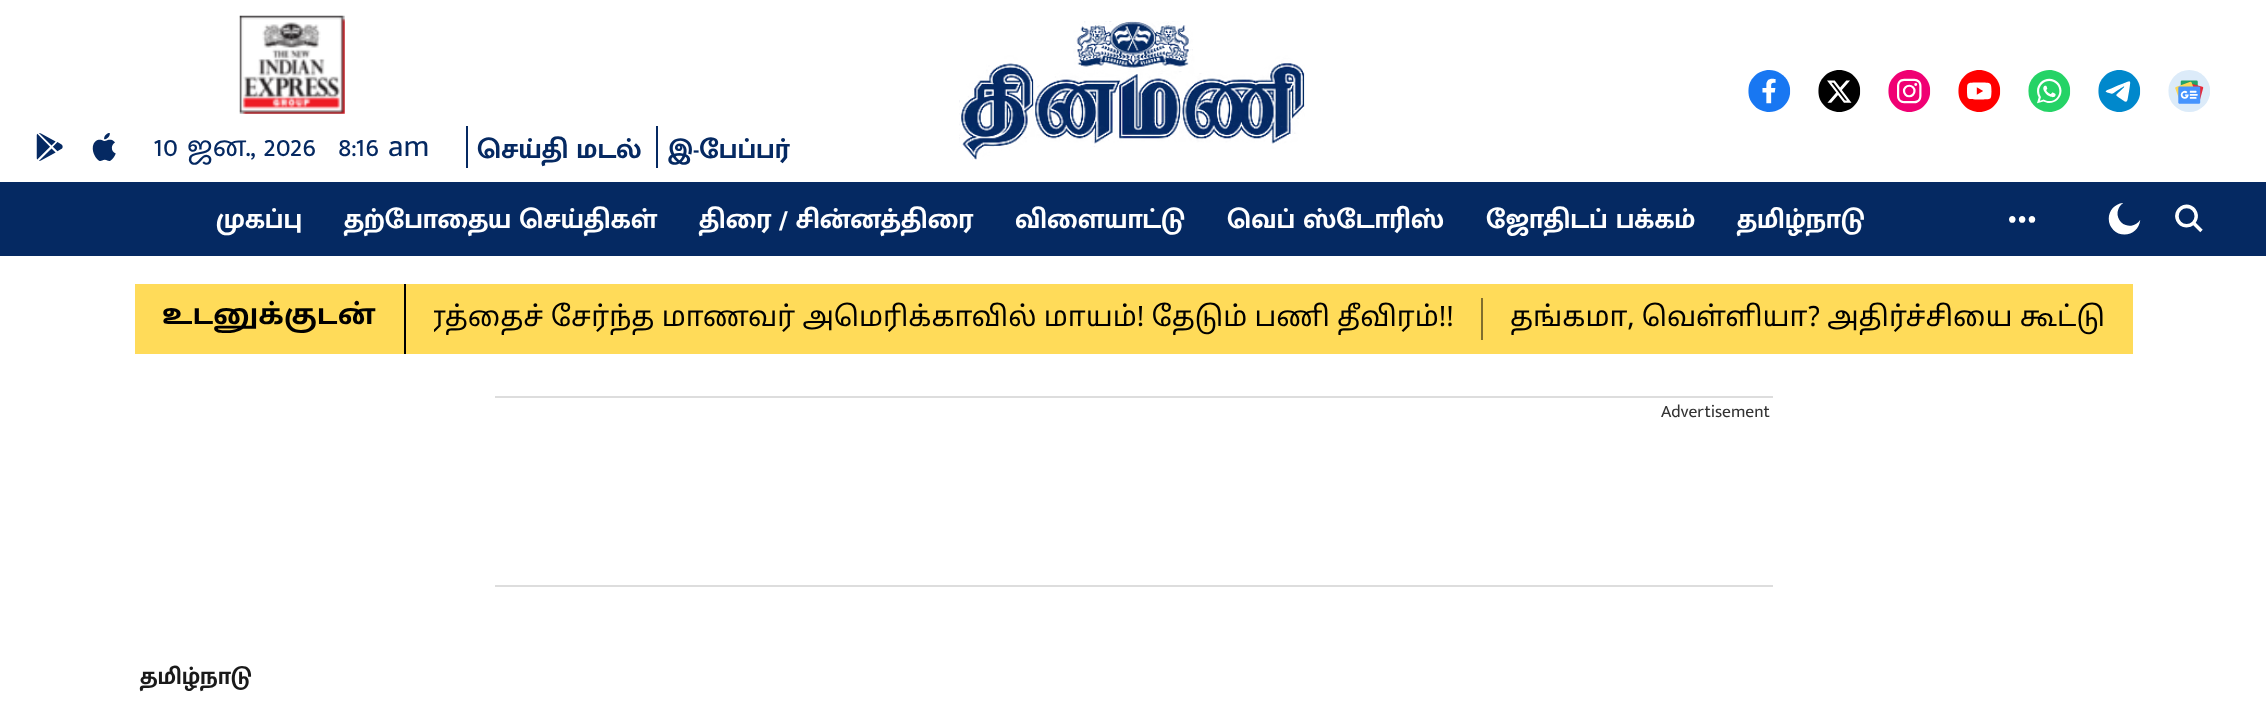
<!DOCTYPE html>
<meta charset="utf-8">
<style>body { margin: 0 } canvas { display: block }</style>
<canvas id="canvas" width="2266" height="711"></canvas>
<img id="img1" src="images/1.png" hidden>
<img id="img2" src="images/2.png" hidden>
<img id="img3" src="images/3.png" hidden>
<img id="img4" src="images/4.png" hidden>
<img id="img5" src="images/5.png" hidden>
<img id="img6" src="images/6.png" hidden>
<img id="img7" src="images/7.png" hidden>
<img id="img8" src="images/8.png" hidden>
<img id="img9" src="images/9.png" hidden>
<img id="img10" src="images/10.png" hidden>
<img id="img11" src="images/11.png" hidden>
<img id="img12" src="images/12.png" hidden>
<img id="img13" src="images/13.png" hidden>
<img id="img14" src="images/14.png" hidden>
<script>
window.onload = function () {
    const canvas = document.getElementById('canvas');
    const context = canvas.getContext('2d');
    context.miterLimit = 4;
    context.fontKerning = 'normal';

    context.fillStyle = 'rgb(255, 255, 255)';
    context.fillRect(0, 0, 2266, 711);
    context.drawImage(document.getElementById('img1'), 959, 21, 346, 139);
    context.drawImage(document.getElementById('img2'), 1748, 70, 43, 42);
    context.drawImage(document.getElementById('img3'), 1818, 70, 43, 42);
    context.drawImage(document.getElementById('img4'), 1888, 70, 43, 42);
    context.drawImage(document.getElementById('img5'), 1958, 70, 43, 42);
    context.drawImage(document.getElementById('img6'), 2028, 70, 43, 42);
    context.drawImage(document.getElementById('img7'), 2098, 70, 43, 42);
    context.drawImage(document.getElementById('img8'), 2168, 70, 42, 42);
    context.drawImage(document.getElementById('img9'), 36, 133, 27, 28);
    context.drawImage(document.getElementById('img10'), 92, 133, 24, 28);
    context.drawImage(document.getElementById('img11'), 239, 15, 106, 99);
    context.fillStyle = 'rgb(5, 41, 98)';
    context.fillRect(466, 126, 2, 42);
    context.fillRect(656, 126, 2, 42);
    context.fillRect(0, 182, 2266, 74);
    context.drawImage(document.getElementById('img12'), 2009, 216, 27, 7);
    context.drawImage(document.getElementById('img13'), 2108, 203, 33, 32);
    context.drawImage(document.getElementById('img14'), 2175, 204, 28, 29);
    context.fillStyle = 'rgb(255, 219, 89)';
    context.fillRect(135, 284, 1998, 70);
    context.fillStyle = 'rgb(0, 0, 0)';
    context.fillRect(404, 284, 2, 70);
    context.fillStyle = 'rgb(128, 110, 45)';
    context.fillRect(1481, 298, 2, 42);
    context.fillStyle = 'rgb(221, 221, 221)';
    context.fillRect(495, 396, 1278, 2);
    context.fillRect(495, 585, 1278, 2);
    context.font = '31.5px Mukta Malar';
    context.fillStyle = 'rgb(5, 41, 98)';
    context.fillText('10 ஜன., 2026', 154, 156);
    context.fillText('8:16 am', 338, 156);
    context.font = 'bold 28px Mukta Malar';
    context.fillText('செய்தி மடல்', 477, 158);
    context.fillText('இ-பேப்பர்', 668, 158);
    context.fillStyle = 'rgb(255, 255, 255)';
    context.fillText('முகப்பு', 216, 228);
    context.fillText('தற்போதைய செய்திகள்', 344, 228);
    context.fillText('திரை / சின்னத்திரை', 699, 228);
    context.fillText('விளையாட்டு', 1015, 228);
    context.fillText('வெப் ஸ்டோரிஸ்', 1227, 228);
    context.fillText('ஜோதிடப் பக்கம்', 1486, 228);
    context.fillText('தமிழ்நாடு', 1737, 228);
    context.font = 'bold 28px Noto Sans Tamil';
    context.fillStyle = 'rgb(0, 0, 0)';
    context.fillText('உடனுக்குடன்', 162, 324);
    context.save();
    context.beginPath();
    context.rect(434, 298, 1671, 42);
    context.clip();
    context.font = '28px Noto Sans Tamil';
    context.fillText('ரத்தைச் சேர்ந்த மாணவர் அமெரிக்காவில் மாயம்! தேடும் பணி தீவிரம்!!', 428, 326);
    context.restore();
    context.font = '28px Noto Sans Tamil';
    context.fillText('தங்கமா, வெள்ளியா? அதிர்ச்சியை கூட்டு', 1510, 326);
    context.font = '17.5px Mukta Malar';
    context.fillStyle = 'rgb(51, 51, 51)';
    context.fillText('Advertisement', 1661, 417);
    context.font = 'bold 24.5px Mukta Malar';
    context.fillStyle = 'rgb(26, 26, 26)';
    context.fillText('தமிழ்நாடு', 140, 684);
};
</script>
